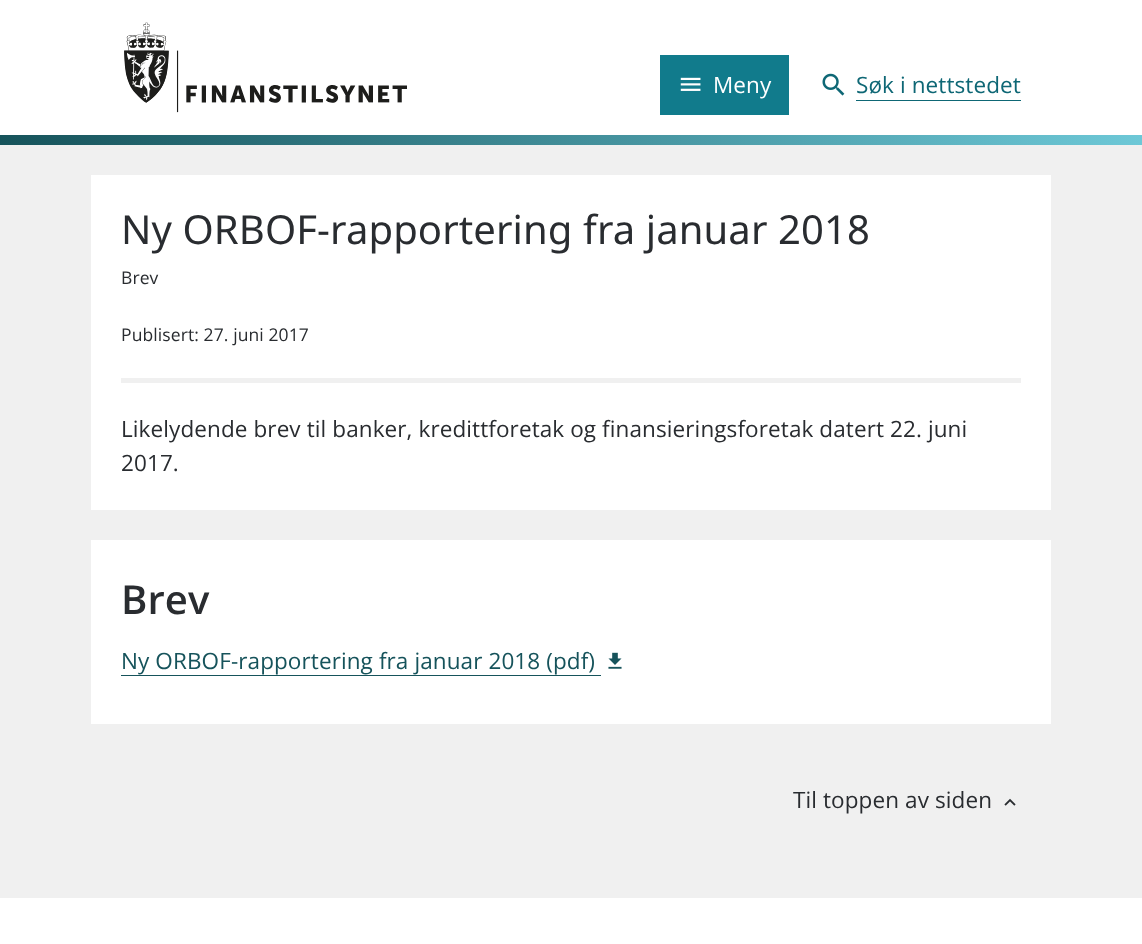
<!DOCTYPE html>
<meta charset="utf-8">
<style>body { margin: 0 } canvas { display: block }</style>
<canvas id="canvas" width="1142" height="944"></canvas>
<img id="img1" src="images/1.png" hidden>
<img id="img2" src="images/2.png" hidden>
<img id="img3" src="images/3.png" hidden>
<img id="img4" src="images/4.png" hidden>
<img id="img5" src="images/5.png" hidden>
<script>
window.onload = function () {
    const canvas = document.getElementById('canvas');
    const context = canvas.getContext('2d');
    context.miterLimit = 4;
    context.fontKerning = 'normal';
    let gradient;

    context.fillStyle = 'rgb(240, 240, 240)';
    context.fillRect(0, 0, 1142, 944);
    context.fillStyle = 'rgb(255, 255, 255)';
    context.fillRect(0, 0, 1142, 135);
    context.drawImage(document.getElementById('img1'), 124, 22, 283, 91);
    context.fillStyle = 'rgb(17, 123, 140)';
    context.fillRect(660, 55, 129, 60);
    context.drawImage(document.getElementById('img2'), 680, 77, 21, 14);
    context.drawImage(document.getElementById('img3'), 822, 73, 23, 23);
    context.fillStyle = 'rgb(14, 103, 117)';
    context.fillRect(856, 100, 165, 1);
    gradient = context.createLinearGradient(0, 140, 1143, 140);
    gradient.addColorStop(0, 'rgb(22, 83, 91)');
    gradient.addColorStop(1, 'rgb(109, 200, 215)');
    context.fillStyle = gradient;
    context.fillRect(0, 135, 1142, 10);
    context.fillStyle = 'rgb(255, 255, 255)';
    context.fillRect(91, 175, 960, 335);
    context.fillStyle = 'rgb(240, 240, 240)';
    context.fillRect(121, 378, 900, 5);
    context.fillStyle = 'rgb(255, 255, 255)';
    context.fillRect(91, 540, 960, 184);
    context.fillStyle = 'rgb(22, 83, 91)';
    context.fillRect(121, 675, 480, 1);
    context.drawImage(document.getElementById('img4'), 608, 652, 14, 17);
    context.drawImage(document.getElementById('img5'), 1004, 798, 12, 8);
    context.fillStyle = 'rgb(255, 255, 255)';
    context.fillRect(0, 898, 1142, 46);
    context.letterSpacing = '0.1px';
    context.font = '22.5px Open Sans';
    context.fillText('Meny', 713, 93);
    context.fillStyle = 'rgb(14, 103, 117)';
    context.fillText('Søk i nettstedet', 856, 93);
    context.font = '40px Noto Sans';
    context.fillStyle = 'rgb(41, 44, 48)';
    context.fillText('Ny ORBOF-rapportering fra januar 2018', 121, 244);
    context.font = '17.5px Open Sans';
    context.fillText('Brev', 121, 284);
    context.fillText('Publisert: 27. juni 2017', 121, 341);
    context.font = '22.5px Open Sans';
    context.fillText('Likelydende brev til banker, kredittforetak og finansieringsforetak datert 22. juni', 121, 437);
    context.fillText('2017.', 121, 471);
    context.font = '600 40px Open Sans';
    context.fillText('Brev', 121, 614);
    context.font = '22.5px Open Sans';
    context.fillStyle = 'rgb(22, 83, 91)';
    context.fillText('Ny ORBOF-rapportering fra januar 2018 (pdf)', 121, 669);
    context.fillStyle = 'rgb(41, 44, 48)';
    context.fillText('Til toppen av siden', 793, 808);
};
</script>
